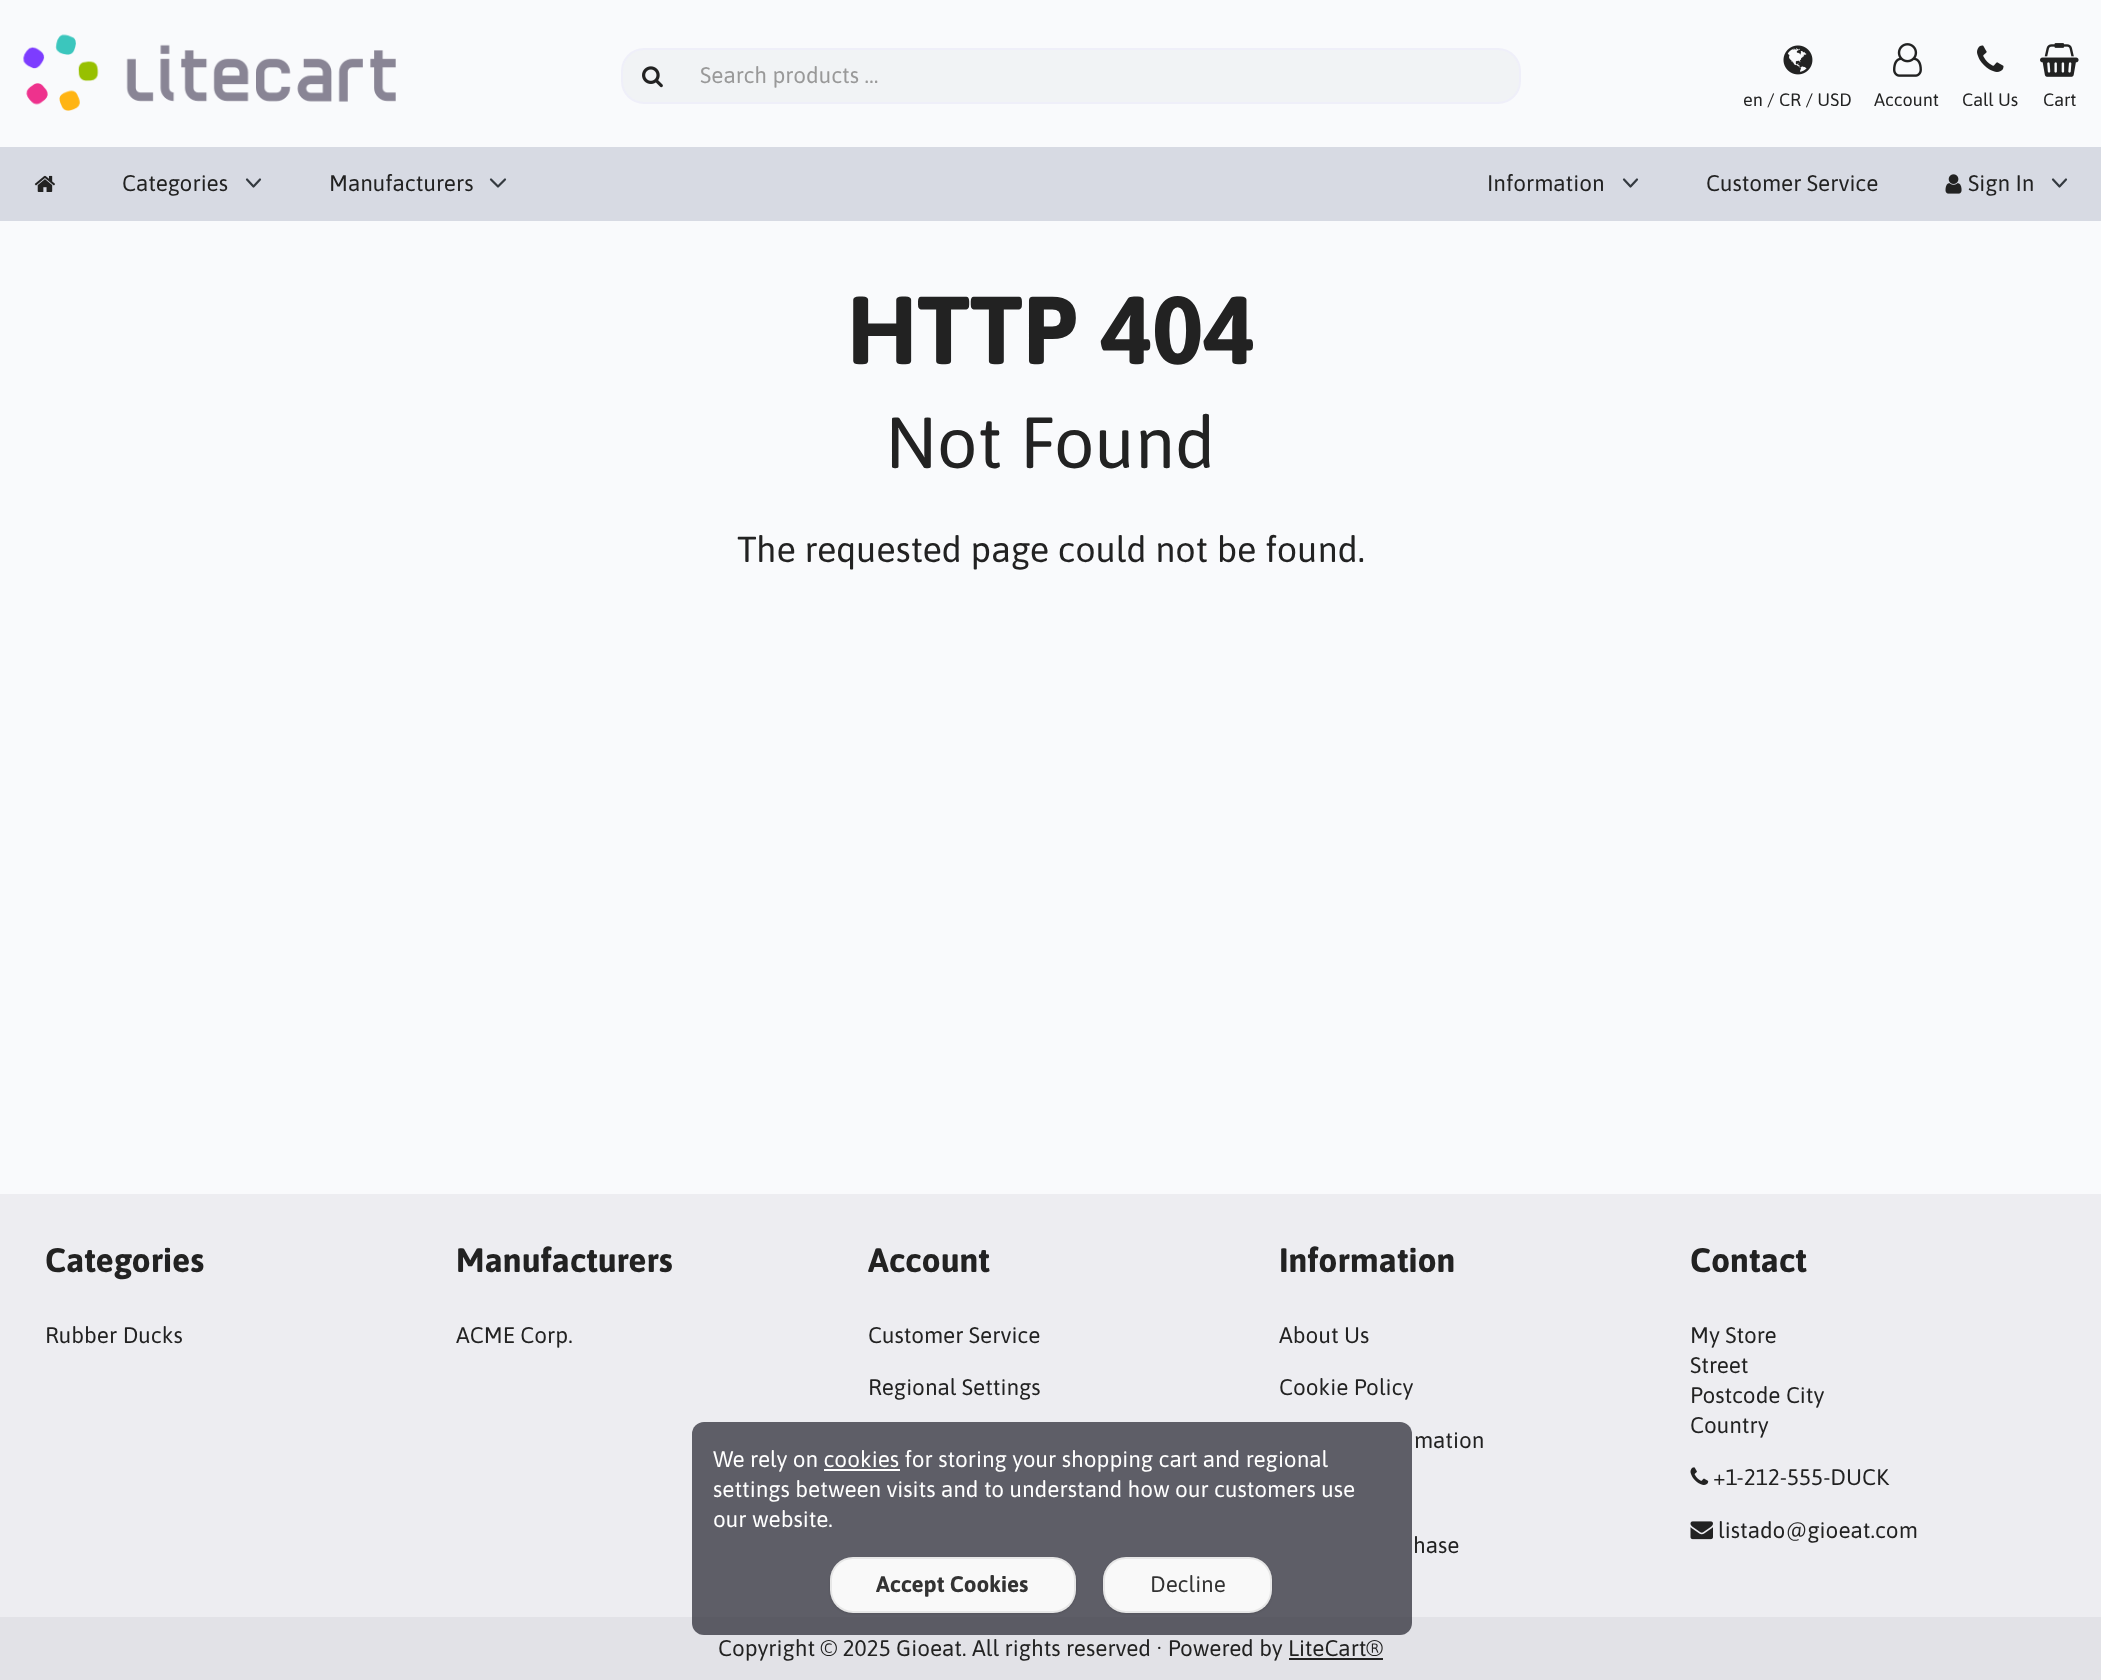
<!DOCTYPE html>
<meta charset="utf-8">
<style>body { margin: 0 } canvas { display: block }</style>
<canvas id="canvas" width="2101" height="1680"></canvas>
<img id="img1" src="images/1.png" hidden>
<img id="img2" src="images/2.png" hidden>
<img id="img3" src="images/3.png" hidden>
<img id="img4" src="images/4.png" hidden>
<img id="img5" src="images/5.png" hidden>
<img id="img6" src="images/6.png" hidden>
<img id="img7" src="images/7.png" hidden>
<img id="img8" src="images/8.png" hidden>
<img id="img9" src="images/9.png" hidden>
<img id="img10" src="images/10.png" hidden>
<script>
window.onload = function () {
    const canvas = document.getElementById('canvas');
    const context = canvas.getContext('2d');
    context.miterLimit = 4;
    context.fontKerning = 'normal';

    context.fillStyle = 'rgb(249, 250, 252)';
    context.fillRect(0, 0, 2101, 1680);
    context.fillStyle = 'rgb(215, 218, 227)';
    context.fillRect(0, 147, 2101, 74);
    context.drawImage(document.getElementById('img1'), 23, 34, 373, 77);
    context.fillStyle = 'rgb(241, 243, 245)';
    context.beginPath();
    context.roundRect(622, 49, 898, 54, 22);
    context.fill();
    context.strokeStyle = 'rgb(239, 239, 249)';
    context.lineWidth = 2;
    context.stroke();
    context.drawImage(document.getElementById('img2'), 642, 66, 21, 22);
    context.drawImage(document.getElementById('img3'), 1783, 45, 30, 30);
    context.drawImage(document.getElementById('img4'), 1893, 43, 29, 34);
    context.drawImage(document.getElementById('img5'), 1977, 45, 27, 27);
    context.drawImage(document.getElementById('img6'), 2040, 43, 39, 34);
    context.drawImage(document.getElementById('img7'), 34, 175, 21, 17);
    context.beginPath();
    context.moveTo(247, 179.5);
    context.lineTo(253.5, 186.5);
    context.lineTo(260, 179.5);
    context.strokeStyle = 'rgb(52, 58, 64)';
    context.lineWidth = 2.2;
    context.lineCap = 'round';
    context.lineJoin = 'round';
    context.stroke();
    context.beginPath();
    context.moveTo(491, 179.5);
    context.lineTo(498, 186.5);
    context.lineTo(505, 179.5);
    context.stroke();
    context.beginPath();
    context.moveTo(1624, 179.5);
    context.lineTo(1630.5, 186.5);
    context.lineTo(1637, 179.5);
    context.stroke();
    context.beginPath();
    context.moveTo(2053, 179.5);
    context.lineTo(2059.5, 186.5);
    context.lineTo(2066, 179.5);
    context.stroke();
    context.drawImage(document.getElementById('img8'), 1945, 174, 17, 20);
    context.fillStyle = 'rgb(237, 237, 241)';
    context.fillRect(0, 1194, 2101, 423);
    context.drawImage(document.getElementById('img9'), 1690, 1467, 19, 18);
    context.drawImage(document.getElementById('img10'), 1690, 1521, 23, 19);
    context.fillStyle = 'rgb(226, 226, 231)';
    context.fillRect(0, 1617, 2101, 63);
    context.fillStyle = 'rgba(45, 45, 56, 0.75)';
    context.beginPath();
    context.roundRect(692, 1422, 720, 213, 12);
    context.fill();
    context.fillStyle = 'rgb(255, 255, 255)';
    context.fillRect(824, 1469, 76, 2);
    context.fillStyle = 'rgba(0, 0, 0, 0.1)';
    context.filter = 'blur(1px)';
    context.beginPath();
    context.roundRect(830, 1559, 246, 55, 23);
    context.fill();
    context.filter = 'none';
    context.fillStyle = 'rgb(249, 249, 249)';
    context.beginPath();
    context.roundRect(830, 1557, 246, 56, 23);
    context.fill();
    context.beginPath();
    context.roundRect(831, 1558, 244, 54, 22);
    context.strokeStyle = 'rgba(0, 0, 0, 0.07)';
    context.lineWidth = 2;
    context.lineJoin = 'miter';
    context.stroke();
    context.fillStyle = 'rgba(0, 0, 0, 0.1)';
    context.filter = 'blur(1px)';
    context.beginPath();
    context.roundRect(1103, 1559, 169, 55, 23);
    context.fill();
    context.filter = 'none';
    context.fillStyle = 'rgb(249, 249, 249)';
    context.beginPath();
    context.roundRect(1103, 1557, 169, 56, 23);
    context.fill();
    context.beginPath();
    context.roundRect(1104, 1558, 167, 54, 22);
    context.stroke();
    context.fillStyle = 'rgb(34, 34, 34)';
    context.fillRect(1289, 1658, 94, 2);
    context.font = '22.5px Asap';
    context.fillStyle = 'rgb(153, 153, 153)';
    context.fillText('Search products …', 700, 83);
    context.font = '18px Asap';
    context.fillStyle = 'rgb(34, 34, 34)';
    context.fillText('en / CR / USD', 1743, 106);
    context.fillText('Account', 1874, 106);
    context.fillText('Call Us', 1962, 106);
    context.fillText('Cart', 2043, 106);
    context.font = '22.5px Asap';
    context.fillText('Categories', 122, 191);
    context.fillText('Manufacturers', 329, 191);
    context.fillText('Information', 1487, 191);
    context.fillText('Customer Service', 1706, 191);
    context.fillText('Sign In', 1968, 191);
    context.font = 'bold 96px Asap';
    context.fillText('HTTP 404', 847, 364);
    context.font = '72px Asap';
    context.fillText('Not Found', 885, 468);
    context.font = '36px Asap';
    context.fillText('The requested page could not be found.', 737, 562);
    context.font = 'bold 33.75px Asap';
    context.fillText('Categories', 45, 1272);
    context.font = '22.5px Asap';
    context.fillText('Rubber Ducks', 45, 1343);
    context.font = 'bold 33.75px Asap';
    context.fillText('Manufacturers', 456, 1272);
    context.font = '22.5px Asap';
    context.fillText('ACME Corp.', 456, 1343);
    context.font = 'bold 33.75px Asap';
    context.fillText('Account', 868, 1272);
    context.font = '22.5px Asap';
    context.fillText('Customer Service', 868, 1343);
    context.fillText('Regional Settings', 868, 1395);
    context.font = 'bold 33.75px Asap';
    context.fillText('Information', 1279, 1272);
    context.font = '22.5px Asap';
    context.fillText('About Us', 1279, 1343);
    context.fillText('Cookie Policy', 1279, 1395);
    context.fillText('mation', 1414, 1448);
    context.fillText('hase', 1413, 1553);
    context.font = 'bold 33.75px Asap';
    context.fillText('Contact', 1690, 1272);
    context.font = '22.5px Asap';
    context.fillText('My Store', 1690, 1343);
    context.fillText('Street', 1690, 1373);
    context.fillText('Postcode City', 1690, 1403);
    context.fillText('Country', 1690, 1433);
    context.fillText('+1-212-555-DUCK', 1713, 1485);
    context.fillText('listado@gioeat.com', 1718, 1538);
    context.fillStyle = 'rgb(255, 255, 255)';
    context.fillText('We rely on cookies for storing your shopping cart and regional', 713, 1467);
    context.fillText('settings between visits and to understand how our customers use', 713, 1497);
    context.fillText('our website.', 713, 1527);
    context.font = 'bold 22.5px Asap';
    context.fillStyle = 'rgb(51, 51, 51)';
    context.fillText('Accept Cookies', 876, 1592);
    context.font = '22.5px Asap';
    context.fillText('Decline', 1150, 1592);
    context.fillStyle = 'rgb(34, 34, 34)';
    context.fillText('Copyright © 2025 Gioeat. All rights reserved · Powered by LiteCart®', 718, 1656);
};
</script>
